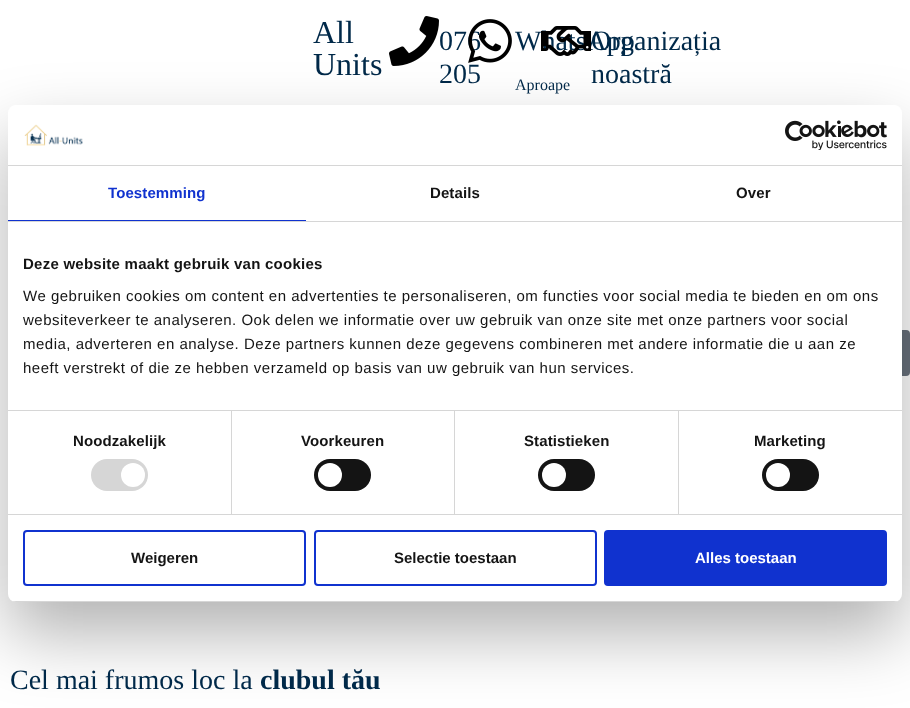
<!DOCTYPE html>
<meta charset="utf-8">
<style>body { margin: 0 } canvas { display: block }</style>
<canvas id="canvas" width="910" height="708"></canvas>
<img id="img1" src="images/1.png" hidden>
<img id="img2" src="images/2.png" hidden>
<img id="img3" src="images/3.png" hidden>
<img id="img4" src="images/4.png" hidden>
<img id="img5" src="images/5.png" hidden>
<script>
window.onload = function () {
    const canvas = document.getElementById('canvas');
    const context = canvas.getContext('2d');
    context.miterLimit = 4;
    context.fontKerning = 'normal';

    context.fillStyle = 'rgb(255, 255, 255)';
    context.fillRect(0, 0, 910, 708);
    context.drawImage(document.getElementById('img1'), 389, 16, 50, 50);
    context.fillStyle = 'rgb(105, 114, 125)';
    context.beginPath();
    context.roundRect(709, 330, 201, 46, 4);
    context.fill();
    context.font = '32px Liberation Serif';
    context.fillStyle = 'rgb(0, 41, 73)';
    context.fillText('All', 313, 43);
    context.fillText('Units', 313, 75);
    context.font = '28px Liberation Serif';
    context.fillText('076', 439, 50);
    context.fillText('205', 439, 83);
    context.drawImage(document.getElementById('img2'), 468, 19, 44, 44);
    context.fillText('WhatsApp', 515, 50);
    context.font = '16px Liberation Serif';
    context.fillText('Aproape', 515, 90);
    context.drawImage(document.getElementById('img3'), 541, 26, 50, 30);
    context.font = '28px Liberation Serif';
    context.fillText('Organizația', 591, 50);
    context.fillText('noastră', 591, 83);
    context.fillStyle = 'rgba(0, 0, 0, 0.3)';
    context.filter = 'blur(34px)';
    context.beginPath();
    context.roundRect(8, 137, 894, 497, 8);
    context.fill();
    context.filter = 'none';
    context.fillStyle = 'rgb(255, 255, 255)';
    context.beginPath();
    context.roundRect(8, 105, 894, 497, 8);
    context.fill();
    context.fillStyle = 'rgb(214, 214, 214)';
    context.fillRect(8, 165, 894, 1);
    context.drawImage(document.getElementById('img4'), 24, 124, 59, 22);
    context.drawImage(document.getElementById('img5'), 785, 120, 102, 30);
    context.fillRect(8, 221, 894, 1);
    context.fillStyle = 'rgb(16, 50, 207)';
    context.fillRect(8, 220, 298, 1);
    context.letterSpacing = '0.1px';
    context.font = 'bold 15px Liberation Sans';
    context.fillText('Toestemming', 108, 198);
    context.fillStyle = 'rgb(20, 20, 20)';
    context.fillText('Details', 430, 198);
    context.fillText('Over', 736, 198);
    context.fillStyle = 'rgb(214, 214, 214)';
    context.fillRect(8, 410, 894, 1);
    context.letterSpacing = '0.25px';
    context.fillStyle = 'rgb(20, 20, 20)';
    context.fillText('Deze website maakt gebruik van cookies', 23, 269);
    context.letterSpacing = '0.5px';
    context.font = '15px Liberation Sans';
    context.fillText('We gebruiken cookies om content en advertenties te personaliseren, om functies voor social media te bieden en om ons', 23, 301);
    context.fillText('websiteverkeer te analyseren. Ook delen we informatie over uw gebruik van onze site met onze partners voor social', 23, 325);
    context.fillText('media, adverteren en analyse. Deze partners kunnen deze gegevens combineren met andere informatie die u aan ze', 23, 349);
    context.fillText('heeft verstrekt of die ze hebben verzameld op basis van uw gebruik van hun services.', 23, 373);
    context.fillStyle = 'rgb(214, 214, 214)';
    context.fillRect(8, 514, 894, 1);
    context.fillRect(231, 411, 1, 103);
    context.letterSpacing = '0.1px';
    context.font = 'bold 15px Liberation Sans';
    context.fillStyle = 'rgb(20, 20, 20)';
    context.fillText('Noodzakelijk', 73, 446);
    context.fillStyle = 'rgb(214, 214, 214)';
    context.beginPath();
    context.roundRect(91, 459, 57, 32, 16);
    context.fill();
    context.fillStyle = 'rgb(255, 255, 255)';
    context.beginPath();
    context.arc(133, 475, 12, 0, 2 * Math.PI);
    context.fill();
    context.fillStyle = 'rgb(214, 214, 214)';
    context.fillRect(454, 411, 1, 103);
    context.fillStyle = 'rgb(20, 20, 20)';
    context.fillText('Voorkeuren', 301, 446);
    context.beginPath();
    context.roundRect(314, 459, 57, 32, 16);
    context.fill();
    context.fillStyle = 'rgb(255, 255, 255)';
    context.beginPath();
    context.arc(330, 475, 12, 0, 2 * Math.PI);
    context.fill();
    context.fillStyle = 'rgb(214, 214, 214)';
    context.fillRect(678, 411, 1, 103);
    context.fillStyle = 'rgb(20, 20, 20)';
    context.fillText('Statistieken', 524, 446);
    context.beginPath();
    context.roundRect(538, 459, 57, 32, 16);
    context.fill();
    context.fillStyle = 'rgb(255, 255, 255)';
    context.beginPath();
    context.arc(554, 475, 12, 0, 2 * Math.PI);
    context.fill();
    context.fillStyle = 'rgb(20, 20, 20)';
    context.fillText('Marketing', 754, 446);
    context.beginPath();
    context.roundRect(762, 459, 57, 32, 16);
    context.fill();
    context.fillStyle = 'rgb(255, 255, 255)';
    context.beginPath();
    context.arc(778, 475, 12, 0, 2 * Math.PI);
    context.fill();
    context.save();
    context.beginPath();
    context.roundRect(8, 105, 894, 497, 8);
    context.clip();
    context.fillStyle = 'rgb(214, 214, 214)';
    context.fillRect(8, 601, 894, 1);
    context.restore();
    context.beginPath();
    context.roundRect(24, 531, 281, 54, 3);
    context.strokeStyle = 'rgb(16, 50, 207)';
    context.lineWidth = 2;
    context.stroke();
    context.letterSpacing = '0px';
    context.fillStyle = 'rgb(20, 20, 20)';
    context.fillText('Weigeren', 131, 563);
    context.beginPath();
    context.roundRect(315, 531, 281, 54, 3);
    context.stroke();
    context.fillText('Selectie toestaan', 394, 563);
    context.fillStyle = 'rgb(16, 50, 207)';
    context.beginPath();
    context.roundRect(605, 531, 281, 54, 3);
    context.fill();
    context.stroke();
    context.fillStyle = 'rgb(255, 255, 255)';
    context.fillText('Alles toestaan', 695, 563);
    context.font = '28px Liberation Serif';
    context.fillStyle = 'rgb(0, 41, 73)';
    context.fillText('Cel mai frumos loc la', 10, 689);
    context.font = 'bold 28px Liberation Serif';
    context.fillText('clubul tău', 260, 689);
};
</script>
